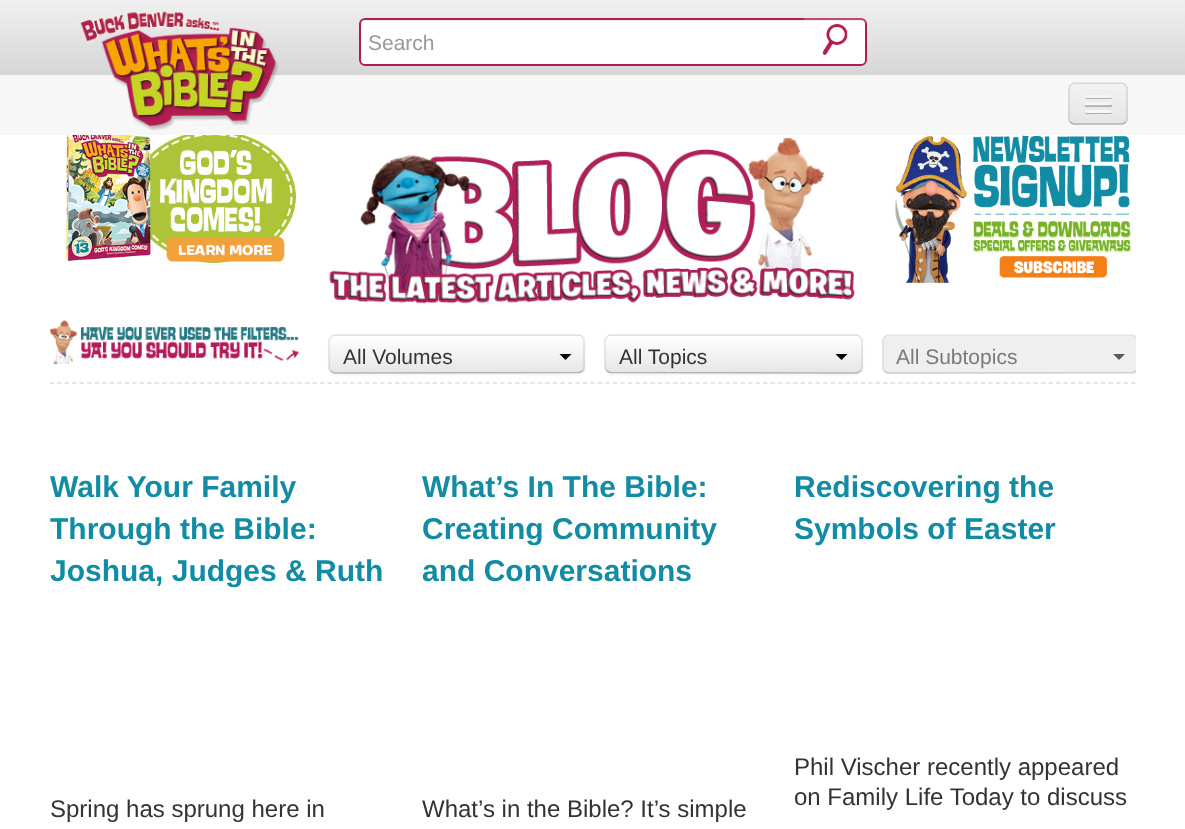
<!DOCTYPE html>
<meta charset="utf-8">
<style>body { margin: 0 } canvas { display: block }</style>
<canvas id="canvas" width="1185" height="829"></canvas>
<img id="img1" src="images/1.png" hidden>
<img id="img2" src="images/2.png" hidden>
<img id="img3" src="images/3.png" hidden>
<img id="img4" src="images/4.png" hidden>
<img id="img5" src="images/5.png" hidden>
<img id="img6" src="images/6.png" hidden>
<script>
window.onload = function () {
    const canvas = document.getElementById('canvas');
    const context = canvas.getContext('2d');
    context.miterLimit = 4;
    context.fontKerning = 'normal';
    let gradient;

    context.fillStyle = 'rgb(255, 255, 255)';
    context.fillRect(0, 0, 1185, 829);
    gradient = context.createLinearGradient(593, 0, 593, 75);
    gradient.addColorStop(0, 'rgb(241, 240, 240)');
    gradient.addColorStop(1, 'rgb(214, 214, 214)');
    context.fillStyle = gradient;
    context.fillRect(0, 0, 1185, 75);
    context.fillStyle = 'rgb(247, 247, 247)';
    context.fillRect(0, 75, 1185, 60);
    context.drawImage(document.getElementById('img1'), 79, 11, 200, 120);
    context.fillStyle = 'rgb(255, 255, 255)';
    context.beginPath();
    context.roundRect(359, 18, 508, 48, 6);
    context.fill();
    context.fillStyle = 'rgb(236, 236, 236)';
    context.beginPath();
    context.moveTo(364, 21);
    context.lineTo(861, 21);
    context.bezierCurveTo(863, 21, 866, 23, 866, 26);
    context.lineTo(866, 25);
    context.bezierCurveTo(866, 22, 864, 20, 861, 20);
    context.lineTo(365, 20);
    context.bezierCurveTo(362, 20, 360, 22, 360, 25);
    context.lineTo(360, 26);
    context.bezierCurveTo(360, 23, 362, 21, 364, 21);
    context.closePath();
    context.fill();
    context.beginPath();
    context.roundRect(360, 19, 506, 46, 5);
    context.strokeStyle = 'rgb(175, 29, 88)';
    context.lineWidth = 2;
    context.stroke();
    context.fillStyle = 'rgba(255, 255, 255, 0.2)';
    context.beginPath();
    context.moveTo(804, 20);
    context.lineTo(860, 20);
    context.bezierCurveTo(863, 20, 866, 22, 866, 26);
    context.lineTo(866, 24);
    context.bezierCurveTo(866, 21, 863, 18, 860, 18);
    context.lineTo(804, 18);
    context.closePath();
    context.fill();
    context.drawImage(document.getElementById('img2'), 822, 24, 26, 31);
    context.fillStyle = 'rgb(237, 237, 237)';
    context.beginPath();
    context.roundRect(1068, 83, 60, 42, 6);
    context.fill();
    context.save();
    context.beginPath();
    context.roundRect(1068, 83, 60, 42, 6);
    context.clip();
    gradient = context.createLinearGradient(1098, 84, 1098, 123);
    gradient.addColorStop(0, 'rgb(242, 242, 242)');
    gradient.addColorStop(1, 'rgb(229, 229, 229)');
    context.fillStyle = gradient;
    context.fillRect(1068, 84, 60, 39);
    context.restore();
    context.beginPath();
    context.moveTo(1125.5, 122);
    context.bezierCurveTo(1124.5, 123, 1123.5, 124, 1122, 124);
    context.lineTo(1074, 124);
    context.bezierCurveTo(1072.5, 124, 1071.5, 123, 1070.5, 122);
    context.strokeStyle = 'rgba(0, 0, 0, 0.25)';
    context.lineWidth = 1.5;
    context.stroke();
    context.beginPath();
    context.moveTo(1070.5, 122);
    context.bezierCurveTo(1069.5, 121, 1069, 120, 1069, 118.5);
    context.lineTo(1069, 88.5);
    context.bezierCurveTo(1069, 87, 1069.5, 86, 1070.5, 85);
    context.bezierCurveTo(1071.5, 84, 1072.5, 83, 1074, 83);
    context.lineTo(1122, 83);
    context.bezierCurveTo(1123.5, 83, 1124.5, 84, 1125.5, 85);
    context.bezierCurveTo(1126.5, 86, 1127, 87, 1127, 88.5);
    context.lineTo(1127, 118.5);
    context.bezierCurveTo(1127, 120, 1126.5, 121, 1125.5, 122);
    context.strokeStyle = 'rgba(0, 0, 0, 0.1)';
    context.stroke();
    context.fillStyle = 'rgb(178, 178, 178)';
    context.beginPath();
    context.moveTo(1085, 97);
    context.bezierCurveTo(1084.5, 100, 1090, 99, 1090.5, 99);
    context.lineTo(1110.5, 99);
    context.bezierCurveTo(1112, 99, 1112.5, 97, 1111.5, 96.5);
    context.lineTo(1110.5, 97.5);
    context.bezierCurveTo(1109, 98, 1085.5, 97.5, 1085, 97);
    context.closePath();
    context.fill();
    context.fillStyle = 'rgb(245, 245, 245)';
    context.beginPath();
    context.roundRect(1085, 95, 27, 3, 1.5);
    context.fill();
    context.fillStyle = 'rgb(176, 176, 176)';
    context.beginPath();
    context.moveTo(1085, 105);
    context.bezierCurveTo(1083.5, 108, 1090.5, 107, 1090.5, 107);
    context.lineTo(1111, 107);
    context.bezierCurveTo(1112, 106.5, 1112.5, 105, 1111.5, 104);
    context.lineTo(1110, 105);
    context.bezierCurveTo(1108, 105.5, 1086, 105.5, 1085, 105);
    context.closePath();
    context.fill();
    context.fillStyle = 'rgb(245, 245, 245)';
    context.beginPath();
    context.roundRect(1085, 102, 27, 3, 1.5);
    context.fill();
    context.fillStyle = 'rgb(174, 174, 174)';
    context.beginPath();
    context.moveTo(1085, 112);
    context.bezierCurveTo(1084.5, 115, 1090, 114, 1090.5, 114);
    context.lineTo(1110.5, 114);
    context.bezierCurveTo(1112, 114, 1112.5, 112, 1111.5, 111.5);
    context.lineTo(1110.5, 112.5);
    context.bezierCurveTo(1109, 113, 1085.5, 112.5, 1085, 112);
    context.closePath();
    context.fill();
    context.fillStyle = 'rgb(245, 245, 245)';
    context.beginPath();
    context.roundRect(1085, 110, 27, 3, 1.5);
    context.fill();
    context.drawImage(document.getElementById('img3'), 66, 135, 230, 128);
    context.drawImage(document.getElementById('img4'), 329, 137, 526, 167);
    context.drawImage(document.getElementById('img5'), 895, 135, 237, 148);
    context.save();
    context.beginPath();
    context.rect(50, 129, 1086, 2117);
    context.clip();
    context.beginPath();
    context.moveTo(19.5, 383);
    context.lineTo(1135.5, 383);
    context.strokeStyle = 'rgb(221, 221, 221)';
    context.setLineDash([4.5, 3.01]);
    context.stroke();
    context.restore();
    context.drawImage(document.getElementById('img6'), 49, 320, 250, 44);
    context.fillStyle = 'rgba(0, 0, 0, 0.05)';
    context.filter = 'blur(1.5px)';
    context.beginPath();
    context.roundRect(329, 336, 256, 39, 6);
    context.fill();
    context.filter = 'none';
    context.fillStyle = 'rgb(245, 245, 245)';
    context.beginPath();
    context.roundRect(329, 335, 256, 39, 6);
    context.fill();
    context.save();
    context.beginPath();
    context.roundRect(329, 335, 256, 39, 6);
    context.clip();
    gradient = context.createLinearGradient(457, 336, 457, 372);
    gradient.addColorStop(0, 'rgb(255, 255, 255)');
    gradient.addColorStop(1, 'rgb(230, 230, 230)');
    context.fillStyle = gradient;
    context.fillRect(329, 336, 256, 36);
    context.restore();
    context.beginPath();
    context.moveTo(582.5, 371);
    context.lineTo(579.5, 372.5);
    context.lineTo(334.5, 373);
    context.bezierCurveTo(333, 372.5, 332, 372, 331, 371);
    context.strokeStyle = 'rgb(179, 179, 179)';
    context.stroke();
    context.beginPath();
    context.moveTo(331, 371);
    context.bezierCurveTo(330, 370, 329, 369, 329, 367.5);
    context.lineTo(329, 340.5);
    context.bezierCurveTo(329, 339, 330, 338, 331, 337);
    context.bezierCurveTo(332, 336, 333, 335, 334.5, 335);
    context.lineTo(579, 335);
    context.bezierCurveTo(580.5, 335, 581.5, 336, 582.5, 337);
    context.bezierCurveTo(583.5, 338, 584, 339, 584, 340.5);
    context.lineTo(584, 367.5);
    context.bezierCurveTo(584, 369, 583.5, 370, 582.5, 371);
    context.strokeStyle = 'rgba(0, 0, 0, 0.1)';
    context.stroke();
    context.fillStyle = 'rgb(0, 0, 0)';
    context.beginPath();
    context.moveTo(559.5, 354);
    context.lineTo(571.5, 354);
    context.lineTo(565.5, 360);
    context.closePath();
    context.fill();
    context.fillStyle = 'rgba(0, 0, 0, 0.05)';
    context.filter = 'blur(1.5px)';
    context.beginPath();
    context.roundRect(605, 336, 258, 39, 6);
    context.fill();
    context.filter = 'none';
    context.fillStyle = 'rgb(245, 245, 245)';
    context.beginPath();
    context.roundRect(605, 335, 258, 39, 6);
    context.fill();
    context.save();
    context.beginPath();
    context.roundRect(605, 335, 258, 39, 6);
    context.clip();
    gradient = context.createLinearGradient(734, 336, 734, 372);
    gradient.addColorStop(0, 'rgb(255, 255, 255)');
    gradient.addColorStop(1, 'rgb(230, 230, 230)');
    context.fillStyle = gradient;
    context.fillRect(605, 336, 258, 36);
    context.restore();
    context.beginPath();
    context.moveTo(860, 371);
    context.bezierCurveTo(859, 372, 858, 372.5, 856.5, 373);
    context.lineTo(610, 372.5);
    context.lineTo(607, 371);
    context.strokeStyle = 'rgb(179, 179, 179)';
    context.stroke();
    context.beginPath();
    context.moveTo(607, 371);
    context.bezierCurveTo(606, 370, 605, 369, 605, 367.5);
    context.lineTo(605, 340.5);
    context.bezierCurveTo(605, 339, 606, 338, 607, 337);
    context.bezierCurveTo(608, 336, 609, 335, 610.5, 335);
    context.lineTo(856.5, 335);
    context.bezierCurveTo(858, 335, 859, 336, 860, 337);
    context.bezierCurveTo(861, 338, 862, 339, 862, 340.5);
    context.lineTo(862, 367.5);
    context.bezierCurveTo(862, 369, 861, 370, 860, 371);
    context.strokeStyle = 'rgba(0, 0, 0, 0.1)';
    context.stroke();
    context.fillStyle = 'rgb(0, 0, 0)';
    context.beginPath();
    context.moveTo(835.5, 354);
    context.lineTo(847.5, 354);
    context.lineTo(841.5, 360);
    context.closePath();
    context.fill();
    context.save();
    context.beginPath();
    context.rect(50, 129, 1086, 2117);
    context.clip();
    context.fillStyle = 'rgb(239, 239, 239)';
    context.beginPath();
    context.roundRect(882, 335, 257, 39, 6);
    context.fill();
    context.restore();
    context.beginPath();
    context.moveTo(1136, 371);
    context.lineTo(1133, 372.5);
    context.lineTo(888, 373);
    context.bezierCurveTo(886.5, 372.5, 885.5, 372, 884.5, 371);
    context.strokeStyle = 'rgb(206, 206, 206)';
    context.stroke();
    context.save();
    context.beginPath();
    context.rect(50, 129, 1086, 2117);
    context.clip();
    context.beginPath();
    context.moveTo(884.5, 371);
    context.bezierCurveTo(883.5, 370, 883, 369, 883, 367.5);
    context.lineTo(883, 340.5);
    context.bezierCurveTo(883, 339, 883.5, 338, 884.5, 337);
    context.bezierCurveTo(885.5, 336, 886.5, 335, 888, 335);
    context.lineTo(1132.5, 335);
    context.bezierCurveTo(1134, 335, 1135, 336, 1136, 337);
    context.bezierCurveTo(1137, 338, 1138, 339, 1138, 340.5);
    context.lineTo(1138, 367.5);
    context.bezierCurveTo(1138, 369, 1137, 370, 1136, 371);
    context.strokeStyle = 'rgba(89, 89, 89, 0.1)';
    context.stroke();
    context.restore();
    context.fillStyle = 'rgb(89, 89, 89)';
    context.beginPath();
    context.moveTo(1113, 354);
    context.lineTo(1125, 354);
    context.lineTo(1119, 360);
    context.closePath();
    context.fill();
    context.font = '21px Liberation Sans';
    context.fillStyle = 'rgb(153, 153, 153)';
    context.fillText('Search', 368, 50);
    context.fillStyle = 'rgb(51, 51, 51)';
    context.fillText('All Volumes', 343, 364);
    context.fillText('All Topics', 619, 364);
    context.fillStyle = 'rgb(122, 122, 122)';
    context.fillText('All Subtopics', 896, 364);
    context.font = 'bold 30px Liberation Sans';
    context.fillStyle = 'rgb(17, 140, 164)';
    context.fillText('Walk Your Family', 50, 497);
    context.save();
    context.beginPath();
    context.rect(50, 129, 1086, 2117);
    context.clip();
    context.fillText('Through the Bible:', 50, 539);
    context.restore();
    context.fillText('Joshua, Judges & Ruth', 50, 581);
    context.font = '24px Liberation Sans';
    context.fillStyle = 'rgb(51, 51, 51)';
    context.fillText('Spring has sprung here in', 50, 817);
    context.font = 'bold 30px Liberation Sans';
    context.fillStyle = 'rgb(17, 140, 164)';
    context.fillText('What’s In The Bible:', 422, 497);
    context.fillText('Creating Community', 422, 539);
    context.fillText('and Conversations', 422, 581);
    context.font = '24px Liberation Sans';
    context.fillStyle = 'rgb(51, 51, 51)';
    context.fillText('What’s in the Bible? It’s simple', 422, 817);
    context.font = 'bold 30px Liberation Sans';
    context.fillStyle = 'rgb(17, 140, 164)';
    context.fillText('Rediscovering the', 794, 497);
    context.fillText('Symbols of Easter', 794, 539);
    context.font = '24px Liberation Sans';
    context.fillStyle = 'rgb(51, 51, 51)';
    context.fillText('Phil Vischer recently appeared', 794, 775);
    context.fillText('on Family Life Today to discuss', 794, 805);
};
</script>
